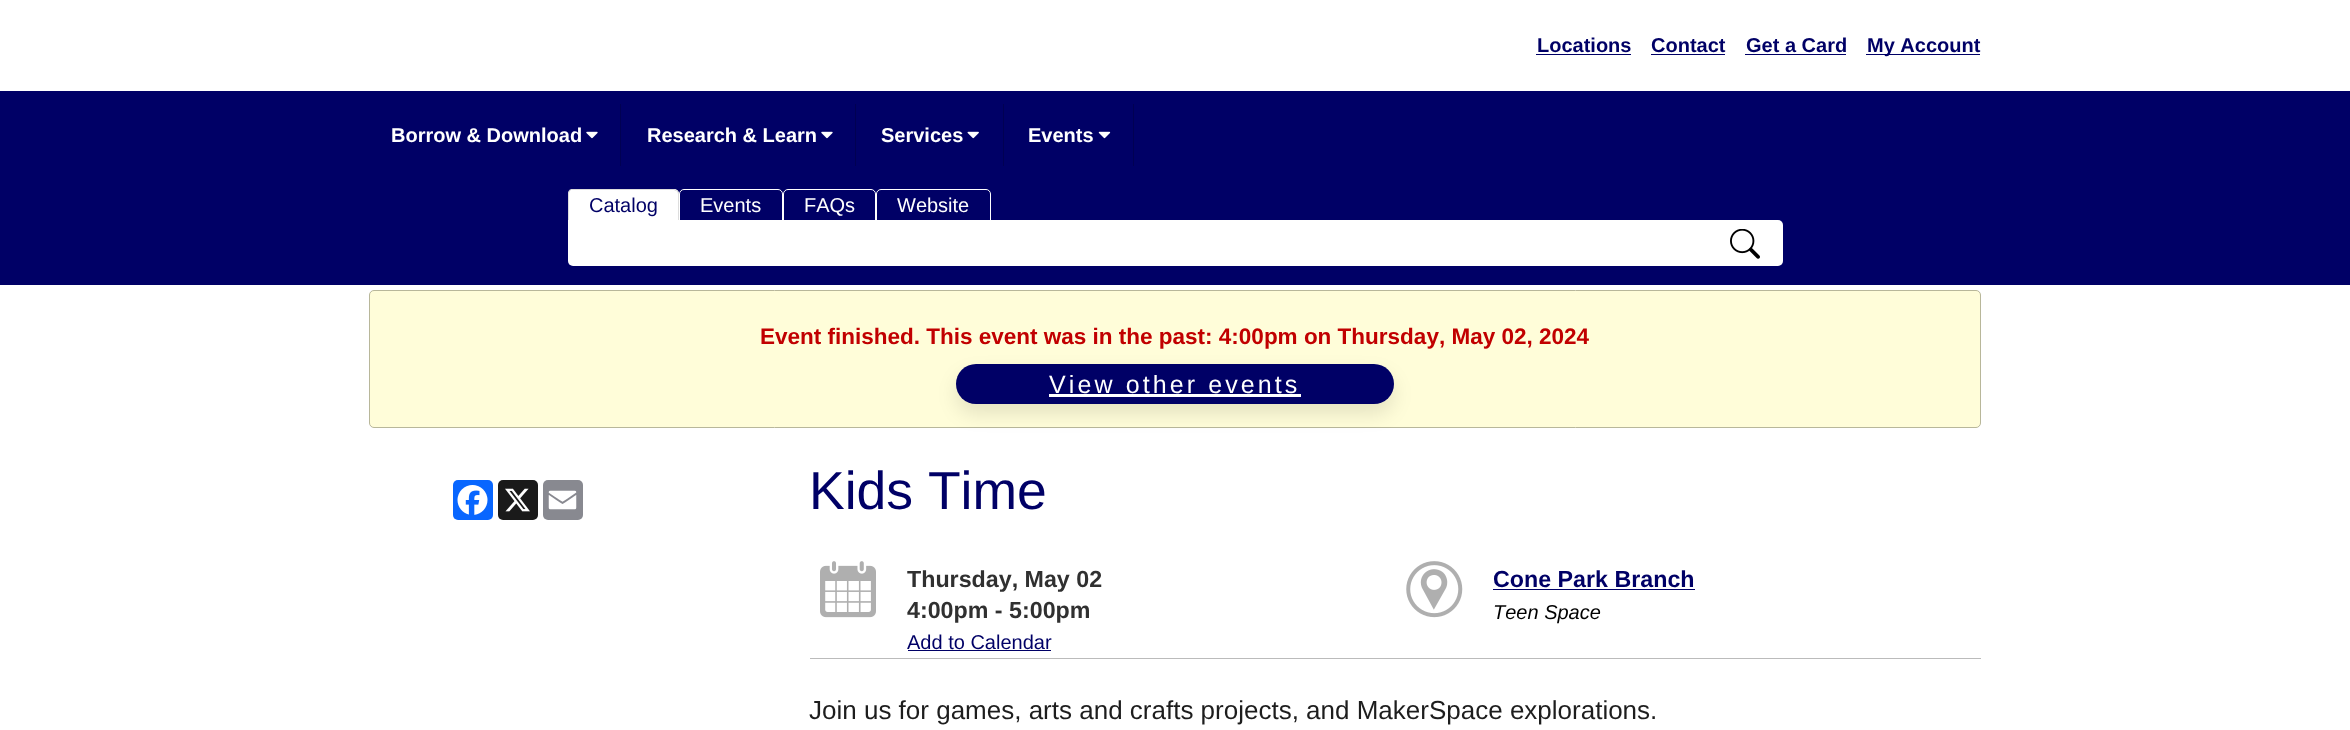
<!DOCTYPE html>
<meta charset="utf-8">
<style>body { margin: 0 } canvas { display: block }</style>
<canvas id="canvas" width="2350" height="730"></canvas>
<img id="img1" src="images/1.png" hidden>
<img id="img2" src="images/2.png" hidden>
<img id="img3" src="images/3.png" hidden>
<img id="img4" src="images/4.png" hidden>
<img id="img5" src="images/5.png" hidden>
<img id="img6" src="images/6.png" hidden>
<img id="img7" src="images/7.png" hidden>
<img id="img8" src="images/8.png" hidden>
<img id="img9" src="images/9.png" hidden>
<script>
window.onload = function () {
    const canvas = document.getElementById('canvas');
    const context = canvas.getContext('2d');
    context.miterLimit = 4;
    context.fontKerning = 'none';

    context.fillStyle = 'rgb(255, 255, 255)';
    context.fillRect(0, 0, 2350, 730);
    context.fillStyle = 'rgb(0, 0, 102)';
    context.fillRect(1536, 54, 95, 1);
    context.fillRect(1651, 54, 74, 1);
    context.fillRect(1745, 54, 101, 1);
    context.fillRect(1866, 54, 114, 1);
    context.fillRect(0, 91, 2350, 194);
    context.fillStyle = 'rgb(0, 0, 82)';
    context.fillRect(620, 104, 1, 62);
    context.drawImage(document.getElementById('img1'), 586, 131, 12, 8);
    context.fillRect(855, 104, 1, 62);
    context.drawImage(document.getElementById('img1'), 821, 131, 12, 8);
    context.fillRect(1003, 104, 1, 62);
    context.drawImage(document.getElementById('img2'), 967, 131, 12, 8);
    context.fillRect(1133, 104, 1, 62);
    context.drawImage(document.getElementById('img3'), 1098, 131, 13, 8);
    context.fillStyle = 'rgb(255, 255, 255)';
    context.beginPath();
    context.roundRect(568, 189, 111, 32, [5, 5, 0, 0]);
    context.fill();
    context.fillStyle = 'rgb(221, 221, 221)';
    context.beginPath();
    context.moveTo(572, 189);
    context.bezierCurveTo(571, 189, 570, 190, 569, 190);
    context.lineTo(570, 191);
    context.lineTo(571, 190);
    context.lineTo(674, 190);
    context.lineTo(676, 191);
    context.lineTo(677, 190);
    context.lineTo(674, 189);
    context.closePath();
    context.fill();
    context.beginPath();
    context.moveTo(677.5, 190);
    context.lineTo(679, 192.5);
    context.lineTo(679, 221);
    context.lineTo(677.5, 220);
    context.lineTo(678, 220);
    context.lineTo(678, 194);
    context.bezierCurveTo(678, 193, 677.5, 192, 676.5, 191);
    context.closePath();
    context.fill();
    context.beginPath();
    context.moveTo(569, 190.5);
    context.bezierCurveTo(568.5, 191.5, 568, 192.5, 568, 194);
    context.lineTo(568, 221);
    context.lineTo(569, 220);
    context.lineTo(569, 194);
    context.bezierCurveTo(569, 193, 569.5, 192, 570, 191);
    context.closePath();
    context.fill();
    context.beginPath();
    context.roundRect(679.5, 189.5, 103, 31, [4.5, 4.5, 0, 0]);
    context.strokeStyle = 'rgb(255, 255, 255)';
    context.stroke();
    context.beginPath();
    context.roundRect(783.5, 189.5, 92, 31, [4.5, 4.5, 0, 0]);
    context.stroke();
    context.beginPath();
    context.roundRect(876.5, 189.5, 114, 31, [4.5, 4.5, 0, 0]);
    context.stroke();
    context.fillStyle = 'rgb(255, 255, 255)';
    context.beginPath();
    context.roundRect(568, 220, 1215, 46, [0, 5, 5, 5]);
    context.fill();
    context.drawImage(document.getElementById('img4'), 1730, 229, 30, 30);
    context.fillStyle = 'rgb(255, 253, 217)';
    context.beginPath();
    context.roundRect(369.5, 290.5, 1611, 137, 4.5);
    context.fill();
    context.strokeStyle = 'rgb(184, 183, 154)';
    context.stroke();
    context.fillStyle = 'rgba(0, 0, 0, 0.1)';
    context.filter = 'blur(9.5px)';
    context.beginPath();
    context.roundRect(956, 374, 438, 40, 20);
    context.fill();
    context.filter = 'none';
    context.fillStyle = 'rgb(0, 0, 102)';
    context.beginPath();
    context.roundRect(956, 364, 438, 40, 20);
    context.fill();
    context.fillStyle = 'rgb(255, 255, 255)';
    context.fillRect(1049, 394, 252, 3);
    context.fillStyle = 'rgb(8, 102, 255)';
    context.beginPath();
    context.roundRect(453, 480, 40, 40, 5);
    context.fill();
    context.drawImage(document.getElementById('img5'), 457, 485, 31, 30);
    context.fillStyle = 'rgb(26, 26, 26)';
    context.beginPath();
    context.roundRect(498, 480, 40, 40, 5);
    context.fill();
    context.drawImage(document.getElementById('img6'), 505, 488, 25, 24);
    context.fillStyle = 'rgb(136, 137, 144)';
    context.beginPath();
    context.roundRect(543, 480, 40, 40, 5);
    context.fill();
    context.drawImage(document.getElementById('img7'), 548, 490, 29, 20);
    context.drawImage(document.getElementById('img8'), 820, 561, 56, 57);
    context.fillStyle = 'rgb(0, 0, 102)';
    context.fillRect(908, 650, 143, 1);
    context.drawImage(document.getElementById('img9'), 1406, 561, 57, 57);
    context.fillRect(1493, 589, 202, 1);
    context.fillStyle = 'rgb(187, 187, 187)';
    context.fillRect(810, 658, 1171, 1);
    context.font = 'bold 20px Liberation Sans';
    context.fillStyle = 'rgb(0, 0, 102)';
    context.fillText('Locations', 1537, 52);
    context.fillText('Contact', 1651, 52);
    context.fillText('Get a Card', 1746, 52);
    context.fillText('My Account', 1867, 52);
    context.fillStyle = 'rgb(255, 255, 255)';
    context.fillText('Borrow & Download', 391, 142);
    context.fillText('Research & Learn', 647, 142);
    context.fillText('Services', 881, 142);
    context.fillText('Events', 1028, 142);
    context.font = '20px Liberation Sans';
    context.fillStyle = 'rgb(0, 0, 102)';
    context.fillText('Catalog', 589, 212);
    context.fillStyle = 'rgb(255, 255, 255)';
    context.fillText('Events', 700, 212);
    context.fillText('FAQs', 804, 212);
    context.fillText('Website', 897, 212);
    context.font = 'bold 22.5px Liberation Sans';
    context.fillStyle = 'rgb(193, 0, 0)';
    context.fillText('Event finished. This event was in the past: 4:00pm on Thursday, May 02, 2024', 760, 344);
    context.letterSpacing = '3.1px';
    context.font = '25px Liberation Sans';
    context.fillStyle = 'rgb(255, 255, 255)';
    context.fillText('View other events', 1049, 393);
    context.letterSpacing = '0px';
    context.font = '53.5px Liberation Sans';
    context.fillStyle = 'rgb(0, 0, 102)';
    context.fillText('Kids Time', 809, 509);
    context.font = 'bold 23.25px Liberation Sans';
    context.fillStyle = 'rgb(48, 48, 48)';
    context.fillText('Thursday, May 02', 907, 587);
    context.fillText('4:00pm - 5:00pm', 907, 618);
    context.font = '20px Liberation Sans';
    context.fillStyle = 'rgb(0, 0, 102)';
    context.fillText('Add to Calendar', 907, 649);
    context.font = 'bold 23.25px Liberation Sans';
    context.fillText('Cone Park Branch', 1493, 587);
    context.font = 'italic 20px Liberation Sans';
    context.fillStyle = 'rgb(0, 0, 0)';
    context.fillText('Teen Space', 1493, 619);
    context.font = '26px Liberation Sans';
    context.fillStyle = 'rgb(29, 29, 29)';
    context.fillText('Join us for games, arts and crafts projects, and MakerSpace explorations.', 809, 719);
};
</script>
